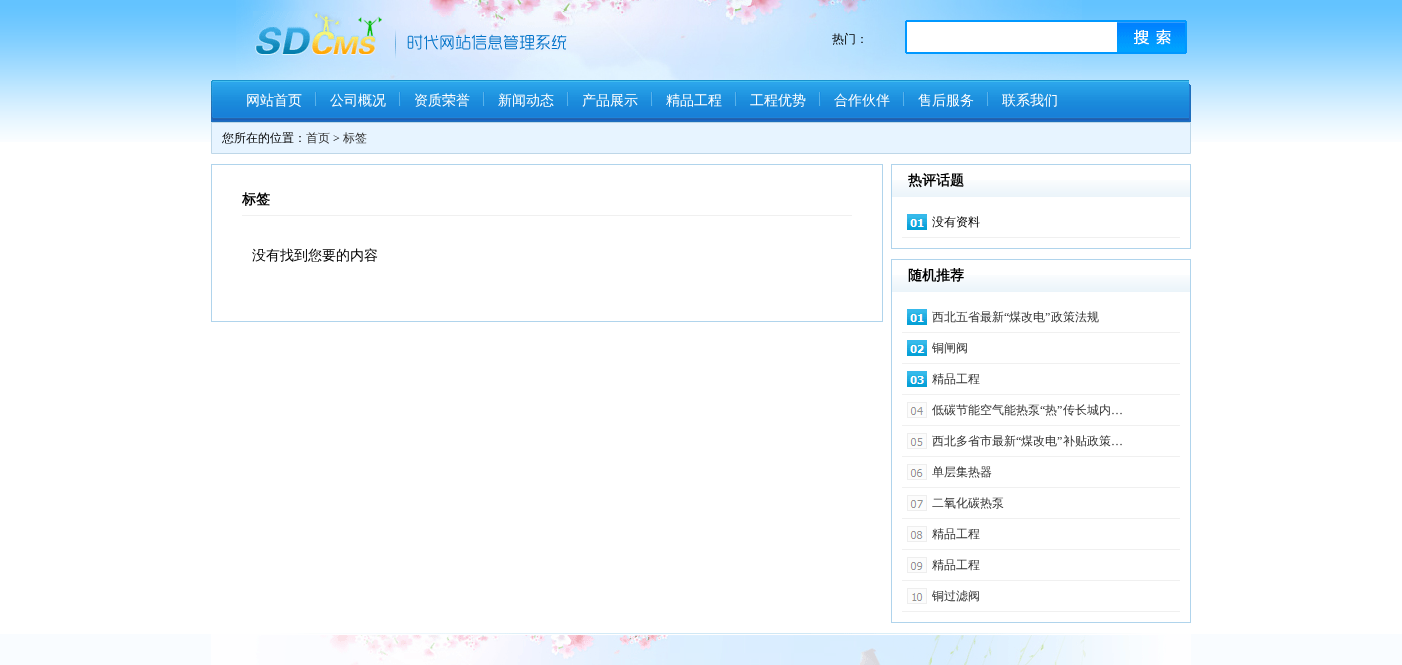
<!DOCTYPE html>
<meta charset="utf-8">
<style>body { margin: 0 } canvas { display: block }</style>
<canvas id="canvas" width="1402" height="665"></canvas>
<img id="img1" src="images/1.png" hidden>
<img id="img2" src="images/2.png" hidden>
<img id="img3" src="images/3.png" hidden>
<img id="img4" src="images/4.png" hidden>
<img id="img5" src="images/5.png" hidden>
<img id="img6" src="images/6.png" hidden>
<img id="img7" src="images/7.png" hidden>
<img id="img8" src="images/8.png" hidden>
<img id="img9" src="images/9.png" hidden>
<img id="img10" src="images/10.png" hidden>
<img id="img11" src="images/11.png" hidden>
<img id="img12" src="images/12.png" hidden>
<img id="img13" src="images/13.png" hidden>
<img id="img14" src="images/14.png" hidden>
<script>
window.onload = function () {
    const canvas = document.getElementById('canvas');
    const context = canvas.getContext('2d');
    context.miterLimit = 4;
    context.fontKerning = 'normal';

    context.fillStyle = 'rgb(255, 255, 255)';
    context.fillRect(0, 0, 1402, 665);
    context.drawImage(document.getElementById('img1'), 0, 0, 1402, 142);
    context.drawImage(document.getElementById('img2'), 236, 0, 846, 80);
    context.drawImage(document.getElementById('img3'), 253, 11, 315, 50);
    context.drawImage(document.getElementById('img4'), 905, 20, 212, 34);
    context.drawImage(document.getElementById('img5'), 1117, 20, 70, 34);
    context.drawImage(document.getElementById('img6'), 211, 121, 980, 1);
    context.drawImage(document.getElementById('img7'), 211, 80, 2, 41);
    context.drawImage(document.getElementById('img8'), 213, 80, 976, 41);
    context.drawImage(document.getElementById('img9'), 315, 92, 2, 14);
    context.drawImage(document.getElementById('img9'), 399, 92, 2, 14);
    context.drawImage(document.getElementById('img9'), 483, 92, 2, 14);
    context.drawImage(document.getElementById('img9'), 567, 92, 2, 14);
    context.drawImage(document.getElementById('img9'), 651, 92, 2, 14);
    context.drawImage(document.getElementById('img9'), 735, 92, 2, 14);
    context.drawImage(document.getElementById('img9'), 819, 92, 2, 14);
    context.drawImage(document.getElementById('img9'), 903, 92, 2, 14);
    context.drawImage(document.getElementById('img9'), 987, 92, 2, 14);
    context.drawImage(document.getElementById('img10'), 1189, 84, 2, 37);
    context.fillStyle = 'rgb(231, 244, 255)';
    context.beginPath();
    context.rect(211.5, 122.5, 979, 31);
    context.fill();
    context.strokeStyle = 'rgb(190, 215, 232)';
    context.stroke();
    context.strokeStyle = 'rgb(176, 212, 236)';
    context.strokeRect(211.5, 164.5, 671, 157);
    context.fillStyle = 'rgb(240, 240, 240)';
    context.fillRect(242, 215, 610, 1);
    context.strokeRect(891.5, 164.5, 299, 84);
    context.drawImage(document.getElementById('img11'), 892, 180, 298, 17);
    context.drawImage(document.getElementById('img12'), 907, 214, 20, 16);
    context.fillRect(902, 237, 278, 1);
    context.strokeRect(891.5, 259.5, 299, 363);
    context.drawImage(document.getElementById('img11'), 892, 275, 298, 17);
    context.drawImage(document.getElementById('img13'), 907, 309, 20, 295);
    context.fillRect(902, 332, 278, 1);
    context.fillRect(902, 363, 278, 1);
    context.fillRect(902, 394, 278, 1);
    context.fillRect(902, 425, 278, 1);
    context.fillRect(902, 456, 278, 1);
    context.fillRect(902, 487, 278, 1);
    context.fillRect(902, 518, 278, 1);
    context.fillRect(902, 549, 278, 1);
    context.fillRect(902, 580, 278, 1);
    context.fillRect(902, 611, 278, 1);
    context.fillStyle = 'rgb(249, 252, 255)';
    context.fillRect(0, 634, 1402, 31);
    context.drawImage(document.getElementById('img14'), 211, 633, 980, 32);
    context.font = '500 12px WenQuanYi Zen Hei';
    context.fillStyle = 'rgb(0, 0, 0)';
    context.fillText('热门：', 832, 43);
    context.font = '500 14px WenQuanYi Zen Hei';
    context.fillStyle = 'rgb(255, 255, 255)';
    context.fillText('网站首页', 246, 105);
    context.fillText('公司概况', 330, 105);
    context.fillText('资质荣誉', 414, 105);
    context.fillText('新闻动态', 498, 105);
    context.fillText('产品展示', 582, 105);
    context.fillText('精品工程', 666, 105);
    context.fillText('工程优势', 750, 105);
    context.fillText('合作伙伴', 834, 105);
    context.fillText('售后服务', 918, 105);
    context.fillText('联系我们', 1002, 105);
    context.font = '500 12px WenQuanYi Zen Hei';
    context.fillStyle = 'rgb(0, 0, 0)';
    context.fillText('您所在的位置：', 222, 142);
    context.fillStyle = 'rgb(51, 51, 51)';
    context.fillText('首页', 306, 142);
    context.font = '12px Liberation Serif';
    context.fillStyle = 'rgb(0, 0, 0)';
    context.fillText('>', 333, 142);
    context.font = '500 12px WenQuanYi Zen Hei';
    context.fillStyle = 'rgb(51, 51, 51)';
    context.fillText('标签', 343, 142);
    context.font = 'bold 14px WenQuanYi Zen Hei';
    context.fillStyle = 'rgb(0, 0, 0)';
    context.fillText('标签', 242, 204);
    context.font = '500 14px WenQuanYi Zen Hei';
    context.fillText('没有找到您要的内容', 252, 260);
    context.font = 'bold 14px WenQuanYi Zen Hei';
    context.fillText('热评话题', 908, 185);
    context.font = '500 12px WenQuanYi Zen Hei';
    context.fillText('没有资料', 932, 226);
    context.font = 'bold 14px WenQuanYi Zen Hei';
    context.fillText('随机推荐', 908, 280);
    context.font = '500 12px WenQuanYi Zen Hei';
    context.fillStyle = 'rgb(51, 51, 51)';
    context.fillText('西北五省最新', 932, 321);
    context.font = '12px Liberation Serif';
    context.fillText('“', 1004, 321);
    context.font = '500 12px WenQuanYi Zen Hei';
    context.fillText('煤改电', 1009, 321);
    context.font = '12px Liberation Serif';
    context.fillText('”', 1045, 321);
    context.font = '500 12px WenQuanYi Zen Hei';
    context.fillText('政策法规', 1051, 321);
    context.fillText('铜闸阀', 932, 352);
    context.fillText('精品工程', 932, 383);
    context.fillText('低碳节能空气能热泵', 932, 414);
    context.font = '12px Liberation Serif';
    context.fillText('“', 1040, 414);
    context.font = '500 12px WenQuanYi Zen Hei';
    context.fillText('热', 1045, 414);
    context.font = '12px Liberation Serif';
    context.fillText('”', 1057, 414);
    context.font = '500 12px WenQuanYi Zen Hei';
    context.fillText('传长城内', 1063, 414);
    context.font = '12px Liberation Serif';
    context.fillText('…', 1111, 414);
    context.font = '500 12px WenQuanYi Zen Hei';
    context.fillText('西北多省市最新', 932, 445);
    context.font = '12px Liberation Serif';
    context.fillText('“', 1016, 445);
    context.font = '500 12px WenQuanYi Zen Hei';
    context.fillText('煤改电', 1021, 445);
    context.font = '12px Liberation Serif';
    context.fillText('”', 1057, 445);
    context.font = '500 12px WenQuanYi Zen Hei';
    context.fillText('补贴政策', 1063, 445);
    context.font = '12px Liberation Serif';
    context.fillText('…', 1111, 445);
    context.font = '500 12px WenQuanYi Zen Hei';
    context.fillText('单层集热器', 932, 476);
    context.fillText('二氧化碳热泵', 932, 507);
    context.fillText('精品工程', 932, 538);
    context.fillText('精品工程', 932, 569);
    context.fillText('铜过滤阀', 932, 600);
};
</script>
